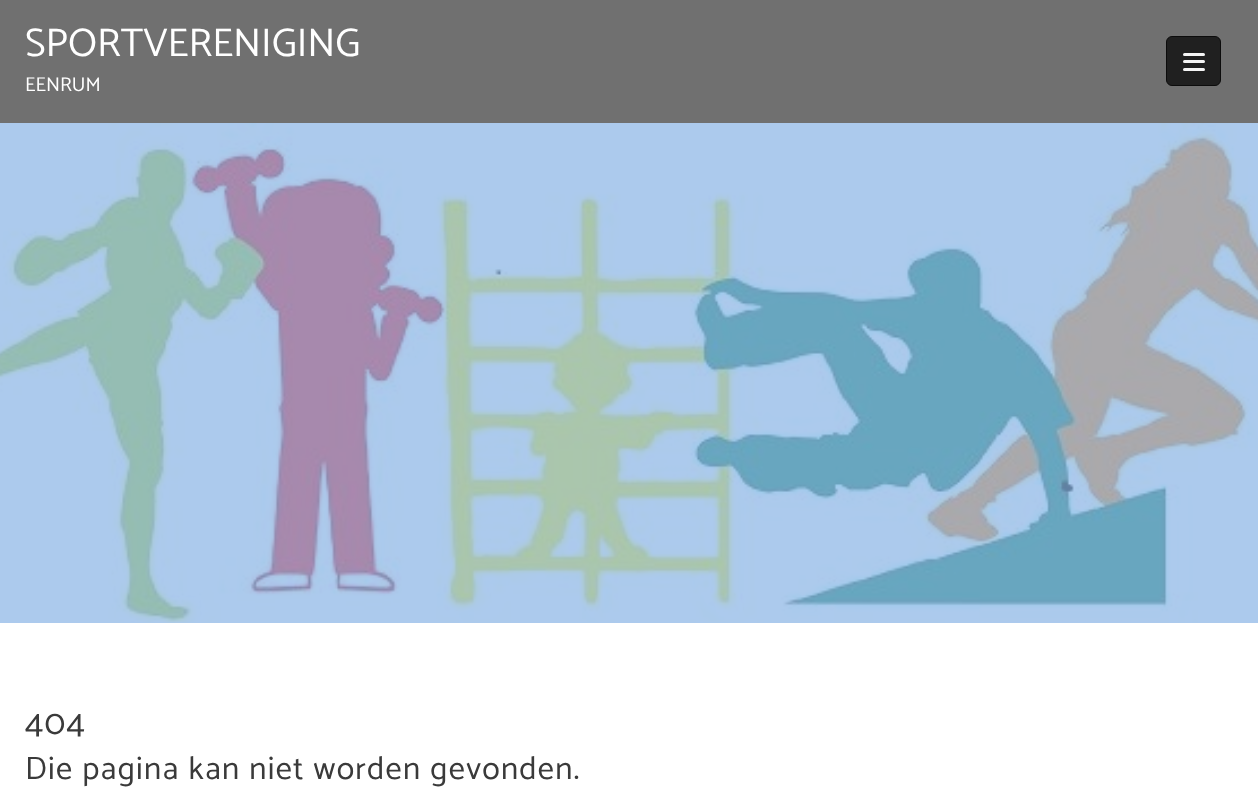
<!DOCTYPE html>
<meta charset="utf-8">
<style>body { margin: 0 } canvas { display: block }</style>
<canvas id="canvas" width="1258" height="790"></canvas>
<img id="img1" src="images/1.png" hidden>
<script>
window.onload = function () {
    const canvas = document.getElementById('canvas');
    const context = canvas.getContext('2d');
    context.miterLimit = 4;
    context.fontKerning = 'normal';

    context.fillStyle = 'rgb(255, 255, 255)';
    context.fillRect(0, 0, 1258, 790);
    context.fillStyle = 'rgb(172, 203, 237)';
    context.fillRect(0, 622, 1258, 1);
    context.fillStyle = 'rgb(112, 112, 112)';
    context.fillRect(0, 0, 1258, 123);
    context.fillStyle = 'rgb(32, 32, 32)';
    context.beginPath();
    context.roundRect(1166.5, 36.5, 54, 49, 5.5);
    context.fill();
    context.strokeStyle = 'rgb(12, 12, 12)';
    context.stroke();
    context.fillStyle = 'rgb(245, 245, 245)';
    context.beginPath();
    context.roundRect(1183, 53, 22, 3, 1.5);
    context.fill();
    context.beginPath();
    context.roundRect(1183, 60, 22, 3, 1.5);
    context.fill();
    context.beginPath();
    context.roundRect(1183, 68, 22, 3, 1.5);
    context.fill();
    context.drawImage(document.getElementById('img1'), 0, 123, 1258, 500);
    context.font = '40px Catamaran';
    context.fillStyle = 'rgb(255, 255, 255)';
    context.fillText('SPORTVERENIGING', 25, 56);
    context.font = '20px Catamaran';
    context.fillText('EENRUM', 25, 91);
    context.letterSpacing = '1.25px';
    context.font = '35px Catamaran';
    context.fillStyle = 'rgb(58, 58, 58)';
    context.fillText('404', 25, 734);
    context.font = '32.5px Catamaran';
    context.fillText('Die pagina kan niet worden gevonden.', 25, 779);
};
</script>
